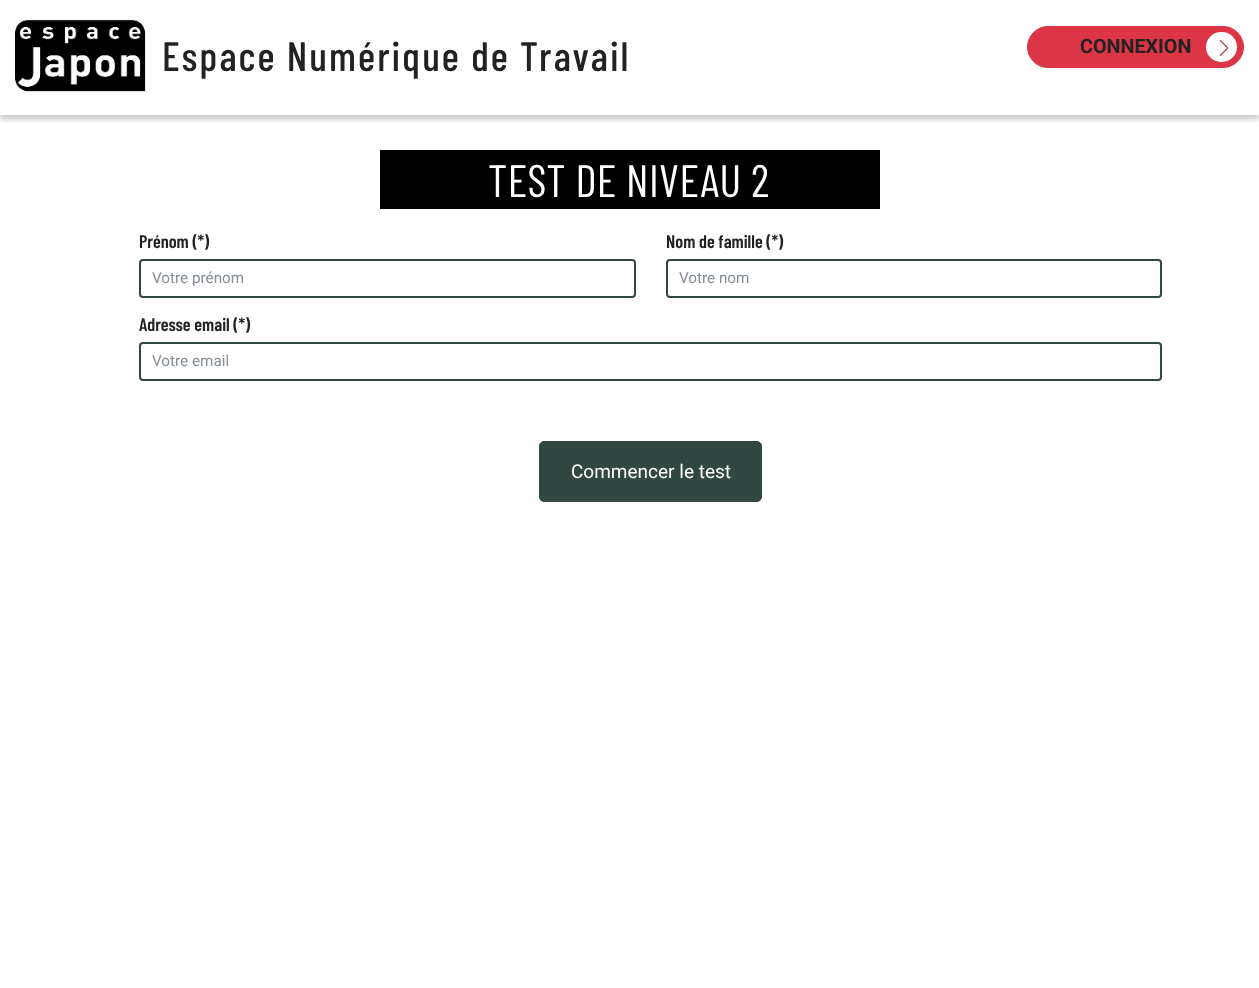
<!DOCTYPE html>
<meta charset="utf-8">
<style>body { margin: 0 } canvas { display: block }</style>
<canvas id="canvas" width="1259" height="988"></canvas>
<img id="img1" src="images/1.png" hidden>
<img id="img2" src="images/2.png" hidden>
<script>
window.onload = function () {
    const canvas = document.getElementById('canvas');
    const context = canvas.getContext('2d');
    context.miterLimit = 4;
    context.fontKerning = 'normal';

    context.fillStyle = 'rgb(255, 255, 255)';
    context.fillRect(0, 0, 1259, 988);
    context.save();
    context.beginPath();
    context.rect(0, 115, 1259, 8);
    context.clip();
    context.fillStyle = 'rgba(0, 0, 0, 0.18)';
    context.filter = 'blur(2.5px)';
    context.beginPath();
    context.rect(0, 5, 1259, 115);
    context.fill();
    context.filter = 'none';
    context.restore();
    context.drawImage(document.getElementById('img1'), 15, 19, 131, 73);
    context.fillStyle = 'rgb(220, 53, 69)';
    context.beginPath();
    context.roundRect(1027.5, 26.5, 216, 41, 20.5);
    context.fill();
    context.strokeStyle = 'rgb(220, 53, 69)';
    context.stroke();
    context.fillStyle = 'rgb(255, 255, 255)';
    context.beginPath();
    context.roundRect(1206, 32, 31, 30, 15);
    context.fill();
    context.drawImage(document.getElementById('img2'), 1219, 39, 10, 18);
    context.fillStyle = 'rgb(0, 0, 0)';
    context.fillRect(380, 150, 500, 59);
    context.beginPath();
    context.roundRect(140, 260, 495, 37, 3);
    context.strokeStyle = 'rgb(49, 71, 65)';
    context.lineWidth = 2;
    context.stroke();
    context.beginPath();
    context.roundRect(667, 260, 494, 37, 3);
    context.stroke();
    context.beginPath();
    context.roundRect(140, 343, 1021, 37, 3);
    context.stroke();
    context.fillStyle = 'rgb(49, 71, 65)';
    context.beginPath();
    context.roundRect(539.5, 441.5, 222, 60, 4.5);
    context.fill();
    context.lineWidth = 1;
    context.stroke();
    context.letterSpacing = '2px';
    context.font = '500 41px Barlow Condensed';
    context.fillStyle = 'rgb(34, 34, 34)';
    context.fillText('Espace Numérique de Travail', 162, 71);
    context.letterSpacing = '0px';
    context.font = 'bold 19.75px Roboto';
    context.fillText('CONNEXION', 1080, 53);
    context.letterSpacing = '0.4px';
    context.font = '45.5px Barlow Condensed';
    context.fillStyle = 'rgb(255, 255, 255)';
    context.fillText('TEST DE NIVEAU 2', 488, 197);
    context.letterSpacing = '0px';
    context.font = '600 18.25px Barlow Condensed';
    context.fillStyle = 'rgb(34, 34, 34)';
    context.fillText('Prénom (*)', 139, 248);
    context.font = '15.25px Roboto';
    context.fillStyle = 'rgb(134, 142, 150)';
    context.fillText('Votre prénom', 152, 283);
    context.font = '600 18.25px Barlow Condensed';
    context.fillStyle = 'rgb(34, 34, 34)';
    context.fillText('Nom de famille (*)', 666, 248);
    context.font = '15.25px Roboto';
    context.fillStyle = 'rgb(134, 142, 150)';
    context.fillText('Votre nom', 679, 283);
    context.font = '600 18.25px Barlow Condensed';
    context.fillStyle = 'rgb(34, 34, 34)';
    context.fillText('Adresse email (*)', 139, 331);
    context.font = '15.25px Roboto';
    context.fillStyle = 'rgb(134, 142, 150)';
    context.fillText('Votre email', 152, 366);
    context.font = '19px Roboto';
    context.fillStyle = 'rgb(255, 255, 255)';
    context.fillText('Commencer le test', 571, 478);
};
</script>
